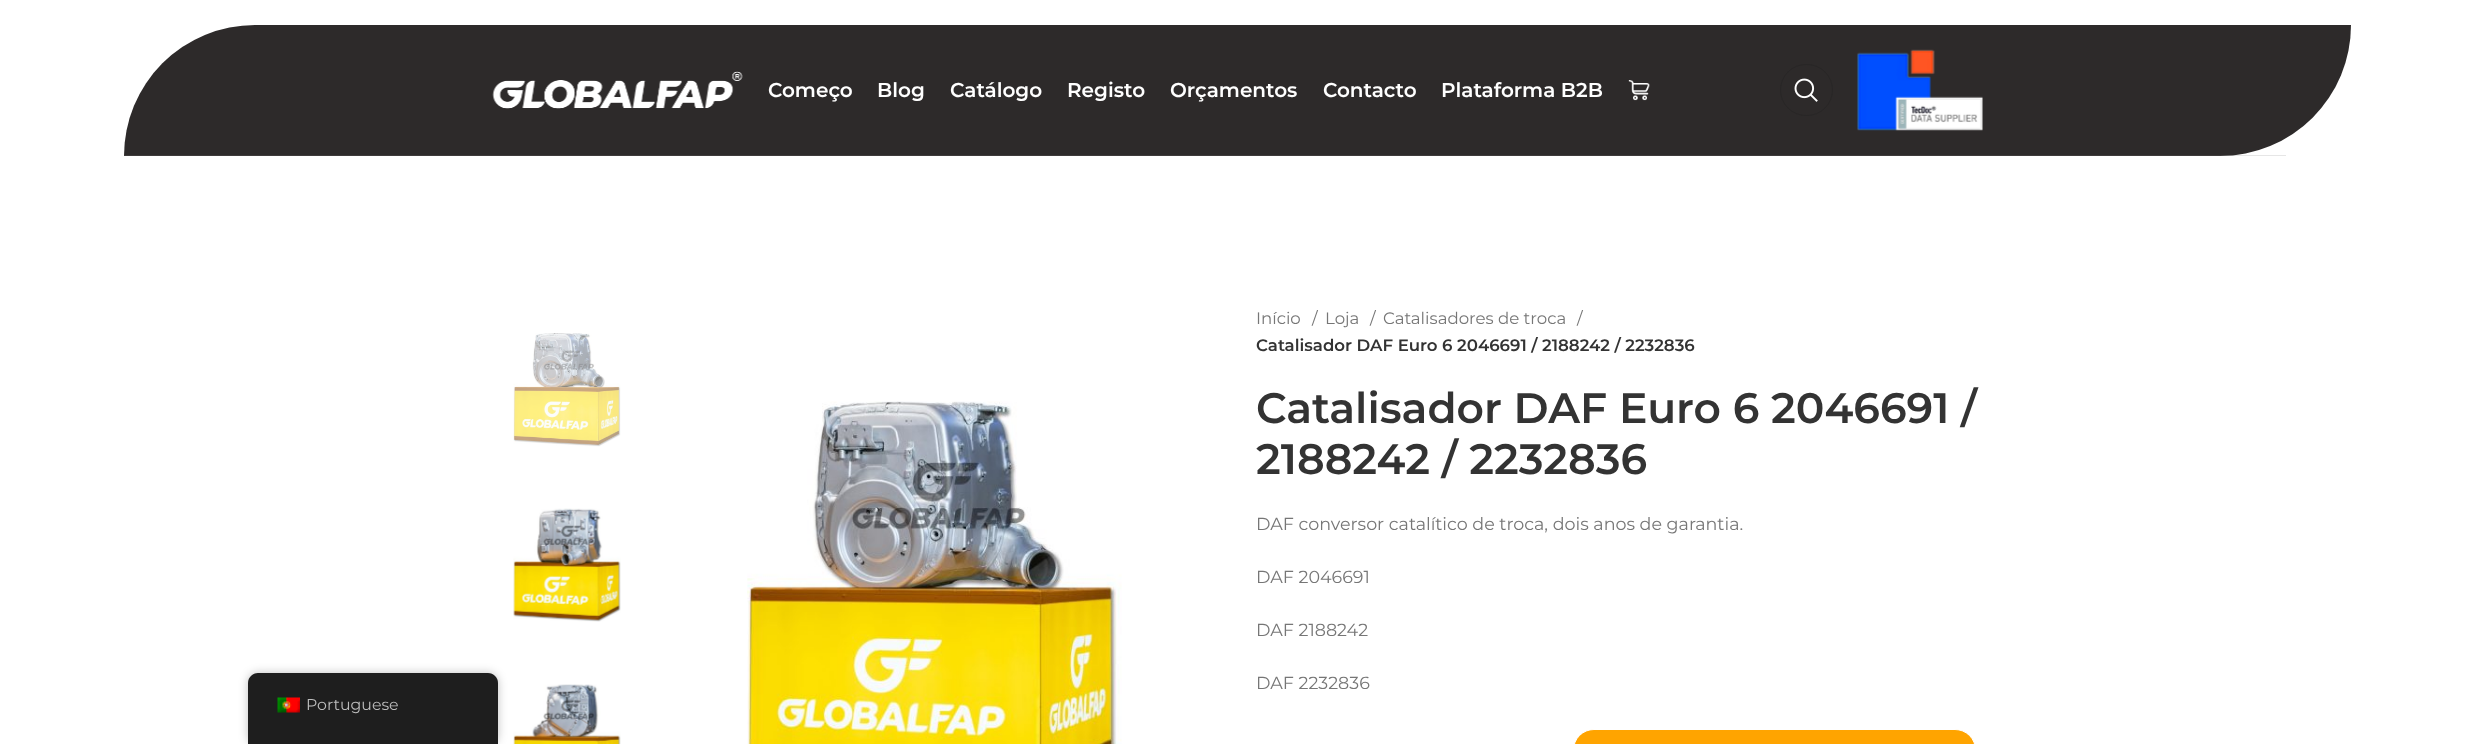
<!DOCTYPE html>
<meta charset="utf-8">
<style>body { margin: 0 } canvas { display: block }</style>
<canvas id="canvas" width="2474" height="744"></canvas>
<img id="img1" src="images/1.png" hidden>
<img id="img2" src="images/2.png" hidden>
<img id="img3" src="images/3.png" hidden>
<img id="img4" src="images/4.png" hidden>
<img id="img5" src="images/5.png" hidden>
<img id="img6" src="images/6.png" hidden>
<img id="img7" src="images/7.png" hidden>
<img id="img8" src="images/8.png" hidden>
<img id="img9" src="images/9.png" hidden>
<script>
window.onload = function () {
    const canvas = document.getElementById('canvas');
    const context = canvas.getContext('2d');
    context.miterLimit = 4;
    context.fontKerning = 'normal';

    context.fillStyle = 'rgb(255, 255, 255)';
    context.fillRect(0, 0, 2474, 744);
    context.fillStyle = 'rgb(45, 42, 42)';
    context.beginPath();
    context.roundRect(124, 25, 2227, 131, [131, 0, 131, 0]);
    context.fill();
    context.fillStyle = 'rgba(129, 129, 129, 0.2)';
    context.fillRect(124, 155, 2162, 1);
    context.drawImage(document.getElementById('img1'), 492, 71, 251, 38);
    context.drawImage(document.getElementById('img2'), 1628, 80, 22, 21);
    context.beginPath();
    context.roundRect(1780.5, 64.5, 52, 51, 25.5);
    context.strokeStyle = 'rgb(40, 38, 38)';
    context.stroke();
    context.drawImage(document.getElementById('img3'), 1794, 78, 24, 24);
    context.drawImage(document.getElementById('img4'), 1857, 49, 126, 82);
    context.drawImage(document.getElementById('img5'), 513, 333, 108, 114);
    context.drawImage(document.getElementById('img6'), 513, 508, 108, 114);
    context.drawImage(document.getElementById('img7'), 513, 684, 108, 60);
    context.drawImage(document.getElementById('img8'), 747, 401, 375, 343);
    context.fillStyle = 'rgb(255, 164, 0)';
    context.beginPath();
    context.roundRect(1573.5, 729.5, 402, 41, 25.5);
    context.fill();
    context.strokeStyle = 'rgb(255, 255, 255)';
    context.stroke();
    context.fillStyle = 'rgba(0, 0, 0, 0.25)';
    context.filter = 'blur(5px)';
    context.beginPath();
    context.roundRect(248, 673, 250, 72, 10);
    context.fill();
    context.filter = 'none';
    context.fillStyle = 'rgb(30, 30, 30)';
    context.beginPath();
    context.moveTo(258, 673);
    context.lineTo(488, 673);
    context.bezierCurveTo(493.5, 673, 498, 677.5, 498, 683);
    context.lineTo(498, 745);
    context.lineTo(248, 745);
    context.lineTo(248, 683);
    context.bezierCurveTo(248, 677.5, 252.5, 673, 258, 673);
    context.closePath();
    context.fill();
    context.drawImage(document.getElementById('img9'), 277, 697, 23, 16);
    context.font = '600 20px Montserrat';
    context.fillStyle = 'rgb(255, 255, 255)';
    context.fillText('Começo', 768, 97);
    context.fillText('Blog', 877, 97);
    context.fillText('Catálogo', 950, 97);
    context.fillText('Registo', 1067, 97);
    context.fillText('Orçamentos', 1170, 97);
    context.fillText('Contacto', 1323, 97);
    context.fillText('Plataforma B2B', 1441, 97);
    context.font = '16.6px Montserrat';
    context.fillStyle = 'rgb(118, 118, 118)';
    context.fillText('Início', 1256, 324);
    context.fillText('/', 1312, 324);
    context.fillText('Loja', 1325, 324);
    context.fillText('/', 1370, 324);
    context.fillText('Catalisadores de troca', 1383, 324);
    context.fillText('/', 1577, 324);
    context.font = '600 16.6px Montserrat';
    context.fillStyle = 'rgb(51, 51, 51)';
    context.fillText('Catalisador DAF Euro 6 2046691 / 2188242 / 2232836', 1256, 351);
    context.font = '600 42.5px Montserrat';
    context.fillText('Catalisador DAF Euro 6 2046691 /', 1256, 423);
    context.fillText('2188242 / 2232836', 1256, 474);
    context.font = '17.5px Montserrat';
    context.fillStyle = 'rgb(118, 118, 118)';
    context.fillText('DAF conversor catalítico de troca, dois anos de garantia.', 1256, 530);
    context.fillText('DAF 2046691', 1256, 583);
    context.fillText('DAF 2188242', 1256, 636);
    context.fillText('DAF 2232836', 1256, 689);
    context.font = '15.75px Montserrat';
    context.fillStyle = 'rgb(189, 189, 189)';
    context.fillText('Portuguese', 306, 710);
};
</script>
